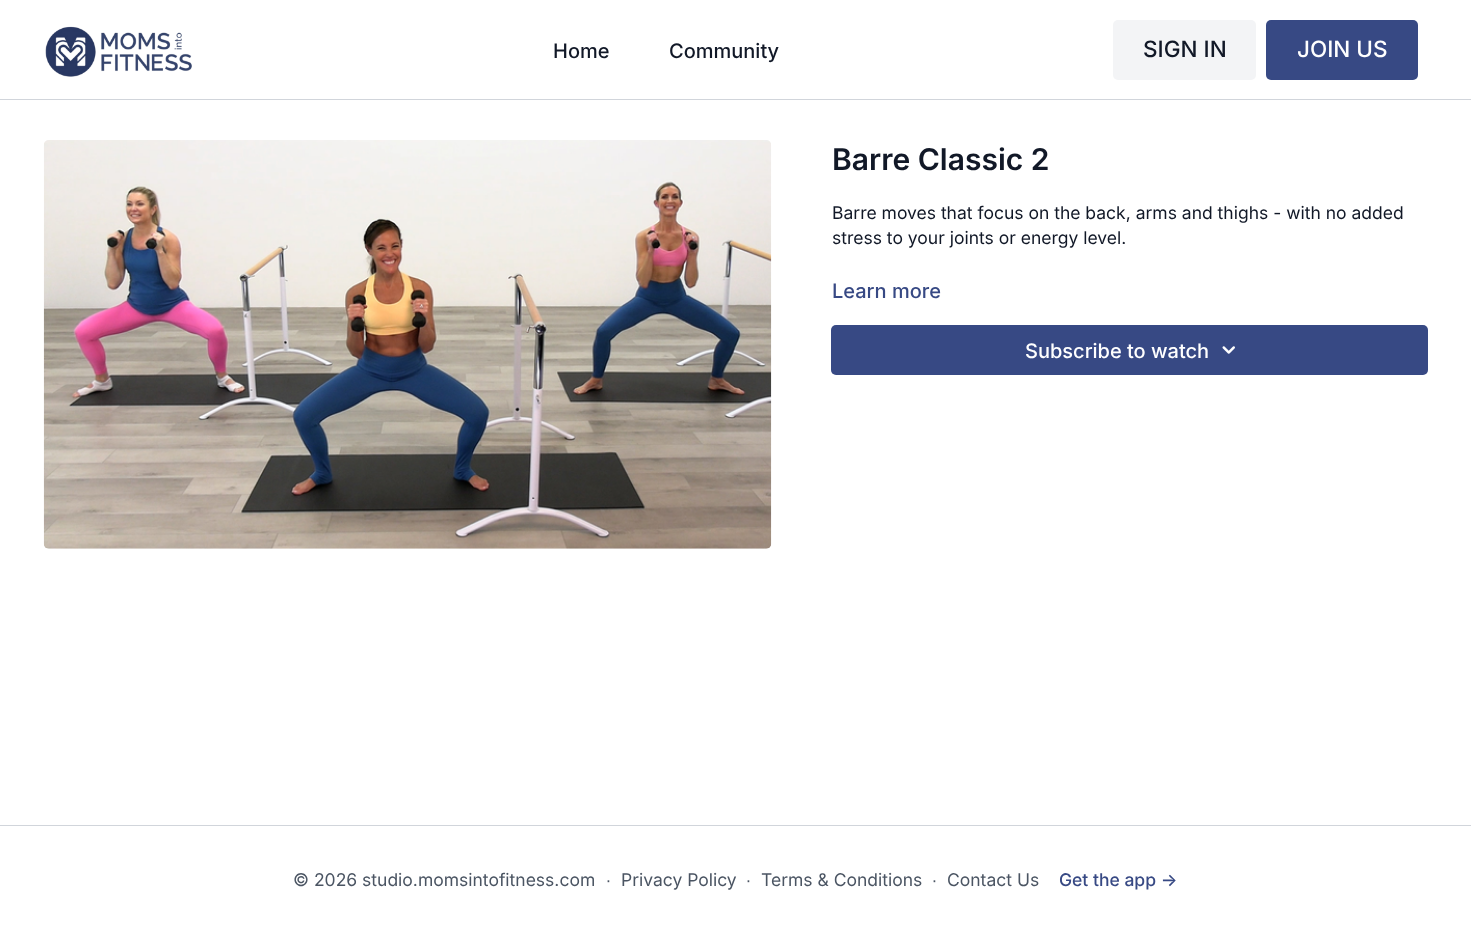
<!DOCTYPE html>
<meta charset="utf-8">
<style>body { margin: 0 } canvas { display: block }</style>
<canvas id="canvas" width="1471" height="942"></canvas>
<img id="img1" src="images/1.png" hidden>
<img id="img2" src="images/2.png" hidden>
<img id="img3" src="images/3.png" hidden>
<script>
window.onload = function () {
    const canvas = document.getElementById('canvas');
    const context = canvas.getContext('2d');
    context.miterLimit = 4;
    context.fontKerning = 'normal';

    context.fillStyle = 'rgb(255, 255, 255)';
    context.fillRect(0, 0, 1471, 942);
    context.fillStyle = 'rgb(209, 213, 219)';
    context.fillRect(0, 99, 1471, 1);
    context.drawImage(document.getElementById('img1'), 45, 26, 147, 51);
    context.fillStyle = 'rgb(243, 244, 246)';
    context.beginPath();
    context.roundRect(1113, 20, 143, 60, 5);
    context.fill();
    context.fillStyle = 'rgb(55, 73, 132)';
    context.beginPath();
    context.roundRect(1266, 20, 152, 60, 5);
    context.fill();
    context.drawImage(document.getElementById('img2'), 43, 140, 729, 409);
    context.beginPath();
    context.roundRect(831, 325, 597, 50, 5);
    context.fill();
    context.drawImage(document.getElementById('img3'), 1222, 346, 13, 8);
    context.fillStyle = 'rgb(209, 213, 219)';
    context.fillRect(0, 825, 1471, 1);
    context.font = '500 20px Inter';
    context.fillStyle = 'rgb(17, 24, 39)';
    context.fillText('Home', 553, 58);
    context.fillText('Community', 669, 58);
    context.font = '500 22.5px Inter';
    context.fillText('SIGN IN', 1143, 57);
    context.fillStyle = 'rgb(255, 255, 255)';
    context.fillText('JOIN US', 1297, 57);
    context.font = '600 30px Inter';
    context.fillStyle = 'rgb(17, 24, 39)';
    context.fillText('Barre Classic 2', 832, 170);
    context.font = '17.5px Inter';
    context.fillText('Barre moves that focus on the back, arms and thighs - with no added', 832, 219);
    context.fillText('stress to your joints or energy level.', 832, 244);
    context.font = '500 20px Inter';
    context.fillStyle = 'rgb(55, 73, 132)';
    context.fillText('Learn more', 832, 298);
    context.fillStyle = 'rgb(255, 255, 255)';
    context.fillText('Subscribe to watch', 1025, 358);
    context.font = '17.5px Inter';
    context.fillStyle = 'rgb(75, 85, 99)';
    context.fillText('© 2026 studio.momsintofitness.com', 293, 886);
    context.font = '17.5px Liberation Sans';
    context.fillText('∙', 606, 886);
    context.font = '17.5px Inter';
    context.fillText('Privacy Policy', 621, 886);
    context.font = '17.5px Liberation Sans';
    context.fillText('∙', 746, 886);
    context.font = '17.5px Inter';
    context.fillText('Terms & Conditions', 761, 886);
    context.font = '17.5px Liberation Sans';
    context.fillText('∙', 932, 886);
    context.font = '17.5px Inter';
    context.fillText('Contact Us', 947, 886);
    context.font = '500 17.5px Inter';
    context.fillStyle = 'rgb(55, 73, 132)';
    context.fillText('Get the app ->', 1059, 886);
};
</script>
